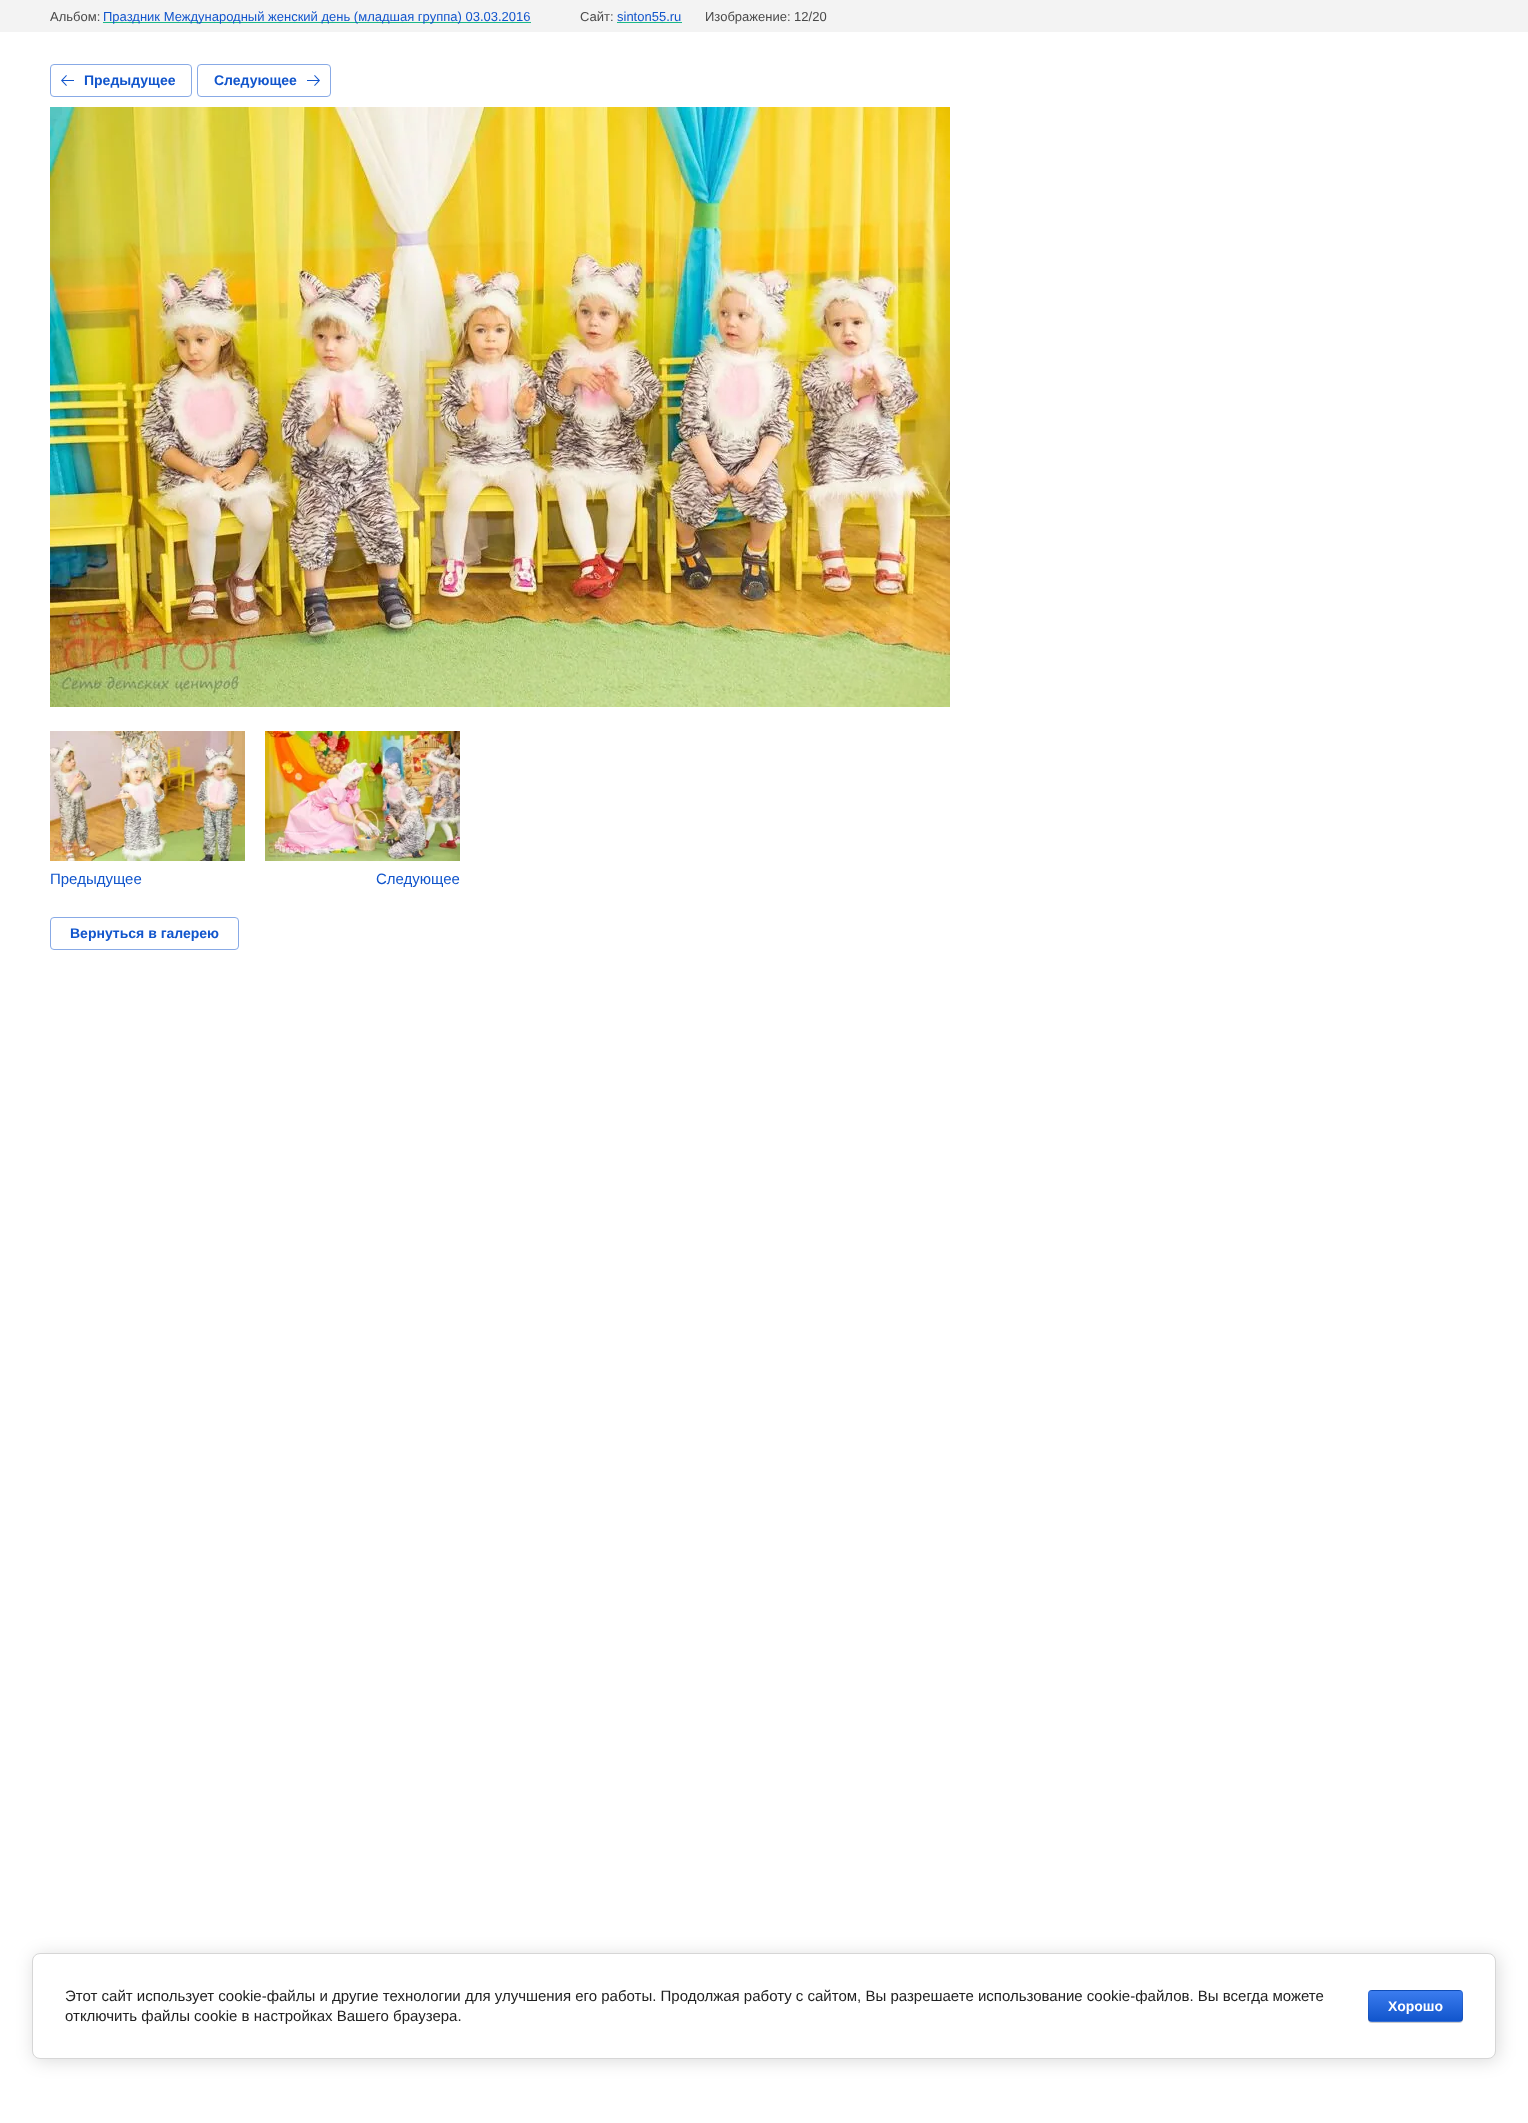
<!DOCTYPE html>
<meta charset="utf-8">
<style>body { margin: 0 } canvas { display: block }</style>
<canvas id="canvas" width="1528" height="2123"></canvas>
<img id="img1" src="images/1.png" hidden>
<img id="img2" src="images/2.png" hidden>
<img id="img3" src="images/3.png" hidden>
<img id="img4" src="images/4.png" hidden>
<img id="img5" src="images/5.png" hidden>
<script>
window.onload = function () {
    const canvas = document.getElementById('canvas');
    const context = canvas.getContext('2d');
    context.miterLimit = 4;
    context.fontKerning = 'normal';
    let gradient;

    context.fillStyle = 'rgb(255, 255, 255)';
    context.fillRect(0, 0, 1528, 2123);
    context.fillStyle = 'rgb(243, 243, 243)';
    context.fillRect(0, 0, 1528, 32);
    context.fillStyle = 'rgb(26, 184, 135)';
    context.fillRect(103, 22, 428, 1);
    context.fillRect(617, 22, 65, 1);
    context.beginPath();
    context.roundRect(50.5, 64.5, 141, 32, 3.5);
    context.strokeStyle = 'rgb(136, 170, 230)';
    context.stroke();
    context.drawImage(document.getElementById('img1'), 61, 75, 13, 11);
    context.beginPath();
    context.roundRect(197.5, 64.5, 133, 32, 3.5);
    context.stroke();
    context.drawImage(document.getElementById('img2'), 307, 75, 13, 11);
    context.drawImage(document.getElementById('img3'), 50, 107, 900, 600);
    context.drawImage(document.getElementById('img4'), 50, 731, 195, 130);
    context.drawImage(document.getElementById('img5'), 265, 731, 195, 130);
    context.beginPath();
    context.roundRect(50.5, 917.5, 188, 32, 3.5);
    context.stroke();
    context.fillStyle = 'rgba(0, 0, 0, 0.14)';
    context.filter = 'blur(9px)';
    context.beginPath();
    context.roundRect(34, 1955, 1464, 106, 8);
    context.fill();
    context.filter = 'none';
    context.fillStyle = 'rgb(255, 255, 255)';
    context.beginPath();
    context.roundRect(32.5, 1953.5, 1463, 105, 7.5);
    context.fill();
    context.strokeStyle = 'rgb(214, 214, 214)';
    context.stroke();
    context.fillStyle = 'rgba(0, 0, 0, 0.2)';
    context.filter = 'blur(0.5px)';
    context.beginPath();
    context.roundRect(1368, 1991, 95, 32, 4);
    context.fill();
    context.filter = 'none';
    context.save();
    context.beginPath();
    context.roundRect(1368, 1990, 95, 32, 4);
    context.clip();
    gradient = context.createLinearGradient(1416, 1961, 1416, 1991);
    gradient.addColorStop(0, 'rgb(59, 124, 239)');
    gradient.addColorStop(1, 'rgb(17, 85, 204)');
    context.fillStyle = gradient;
    context.fillRect(1368, 1990, 95, 1);
    gradient = context.createLinearGradient(1416, 1991, 1416, 2021);
    gradient.addColorStop(0, 'rgb(59, 124, 239)');
    gradient.addColorStop(1, 'rgb(17, 85, 204)');
    context.fillStyle = gradient;
    context.fillRect(1368, 1991, 95, 30);
    gradient = context.createLinearGradient(1416, 2021, 1416, 2051);
    gradient.addColorStop(0, 'rgb(59, 124, 239)');
    gradient.addColorStop(1, 'rgb(17, 85, 204)');
    context.fillStyle = gradient;
    context.fillRect(1368, 2021, 95, 1);
    context.restore();
    context.beginPath();
    context.roundRect(1368.5, 1990.5, 94, 31, 3.5);
    context.strokeStyle = 'rgba(0, 0, 0, 0.1)';
    context.stroke();
    context.font = '13px Liberation Sans';
    context.fillStyle = 'rgb(72, 72, 72)';
    context.fillText('Альбом:', 50, 21);
    context.fillStyle = 'rgb(17, 85, 204)';
    context.fillText('Праздник Международный женский день (младшая группа) 03.03.2016', 103, 21);
    context.fillStyle = 'rgb(72, 72, 72)';
    context.fillText('Сайт:', 580, 21);
    context.fillStyle = 'rgb(17, 85, 204)';
    context.fillText('sinton55.ru', 617, 21);
    context.fillStyle = 'rgb(72, 72, 72)';
    context.fillText('Изображение: 12/20', 705, 21);
    context.font = 'bold 14px Liberation Sans';
    context.fillStyle = 'rgb(17, 85, 204)';
    context.fillText('Предыдущее', 84, 85);
    context.fillText('Следующее', 214, 85);
    context.font = '15px Liberation Sans';
    context.fillText('Предыдущее', 50, 884);
    context.fillText('Следующее', 376, 884);
    context.font = 'bold 14px Liberation Sans';
    context.fillText('Вернуться в галерею', 70, 938);
    context.font = '15px Liberation Sans';
    context.fillStyle = 'rgb(33, 33, 33)';
    context.fillText('Этот сайт использует cookie-файлы и другие технологии для улучшения его работы. Продолжая работу с сайтом, Вы разрешаете использование cookie-файлов. Вы всегда можете', 65, 2001);
    context.fillText('отключить файлы cookie в настройках Вашего браузера.', 65, 2021);
    context.font = 'bold 14px Liberation Sans';
    context.fillStyle = 'rgb(255, 255, 255)';
    context.fillText('Хорошо', 1388, 2011);
};
</script>
